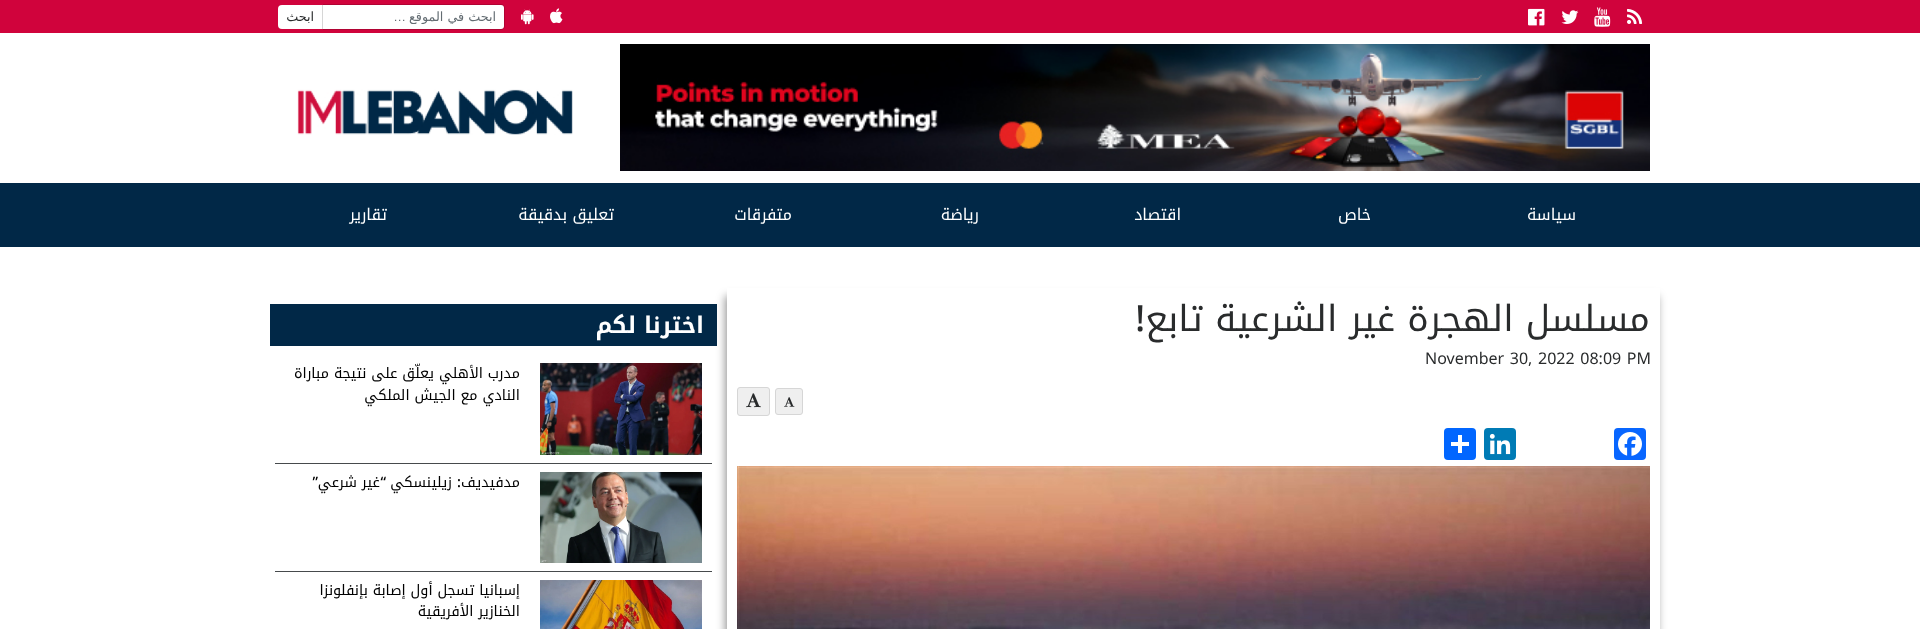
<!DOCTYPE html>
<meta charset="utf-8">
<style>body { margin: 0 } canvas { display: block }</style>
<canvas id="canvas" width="1920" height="629"></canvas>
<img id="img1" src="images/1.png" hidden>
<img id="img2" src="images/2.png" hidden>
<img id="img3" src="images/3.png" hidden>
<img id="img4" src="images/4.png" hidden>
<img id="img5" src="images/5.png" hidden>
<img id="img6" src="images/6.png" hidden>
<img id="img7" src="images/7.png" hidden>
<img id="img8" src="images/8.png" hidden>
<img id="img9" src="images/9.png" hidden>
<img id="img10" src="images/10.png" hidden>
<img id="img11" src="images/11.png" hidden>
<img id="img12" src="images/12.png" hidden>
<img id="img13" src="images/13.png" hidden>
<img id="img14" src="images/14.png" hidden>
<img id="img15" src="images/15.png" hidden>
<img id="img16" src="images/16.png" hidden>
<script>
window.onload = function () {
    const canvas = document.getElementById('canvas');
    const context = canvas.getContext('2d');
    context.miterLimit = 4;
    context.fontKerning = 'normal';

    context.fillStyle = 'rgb(255, 255, 255)';
    context.fillRect(0, 0, 1920, 629);
    context.fillStyle = 'rgb(208, 3, 60)';
    context.fillRect(0, 0, 1920, 33);
    context.drawImage(document.getElementById('img1'), 1627, 8, 16, 16);
    context.drawImage(document.getElementById('img2'), 1594, 7, 17, 20);
    context.drawImage(document.getElementById('img3'), 1561, 10, 18, 14);
    context.drawImage(document.getElementById('img4'), 1528, 8, 17, 18);
    context.drawImage(document.getElementById('img5'), 550, 8, 13, 16);
    context.drawImage(document.getElementById('img6'), 521, 9, 13, 16);
    context.fillStyle = 'rgb(255, 255, 255)';
    context.beginPath();
    context.roundRect(323, 5, 181, 24, [0, 3, 3, 0]);
    context.fill();
    context.fillStyle = 'rgba(0, 0, 0, 0.15)';
    context.beginPath();
    context.moveTo(323, 4);
    context.lineTo(501, 4);
    context.bezierCurveTo(503, 4, 505, 6, 505, 8);
    context.lineTo(505, 26);
    context.bezierCurveTo(505, 28, 503, 30, 501, 30);
    context.lineTo(323, 30);
    context.closePath();
    context.moveTo(323, 5);
    context.lineTo(501, 5);
    context.bezierCurveTo(503, 5, 504, 6, 504, 8);
    context.lineTo(504, 26);
    context.bezierCurveTo(504, 28, 503, 29, 501, 29);
    context.lineTo(323, 29);
    context.closePath();
    context.fill('evenodd');
    context.fillStyle = 'rgb(255, 255, 255)';
    context.beginPath();
    context.roundRect(278, 5, 45, 24, [4, 0, 0, 4]);
    context.fill();
    context.fillStyle = 'rgb(214, 214, 214)';
    context.fillRect(322, 5, 1, 24);
    context.drawImage(document.getElementById('img7'), 620, 44, 1030, 127);
    context.drawImage(document.getElementById('img8'), 297, 89, 276, 46);
    context.fillStyle = 'rgb(1, 40, 71)';
    context.fillRect(0, 183, 1920, 64);
    context.save();
    context.beginPath();
    context.moveTo(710, 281);
    context.lineTo(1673, 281);
    context.lineTo(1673, 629);
    context.lineTo(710, 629);
    context.closePath();
    context.moveTo(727, 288);
    context.lineTo(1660, 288);
    context.lineTo(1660, 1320);
    context.lineTo(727, 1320);
    context.closePath();
    context.clip('evenodd');
    context.fillStyle = 'rgba(0, 0, 0, 0.4)';
    context.filter = 'blur(4.5px)';
    context.beginPath();
    context.rect(725, 296, 933, 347);
    context.fill();
    context.filter = 'none';
    context.restore();
    context.fillStyle = 'rgb(239, 239, 239)';
    context.beginPath();
    context.roundRect(775.5, 388.5, 27, 26, 2.5);
    context.fill();
    context.strokeStyle = 'rgb(214, 214, 214)';
    context.stroke();
    context.drawImage(document.getElementById('img9'), 784, 397, 11, 10);
    context.beginPath();
    context.roundRect(737.5, 387.5, 32, 28, 2.5);
    context.fill();
    context.stroke();
    context.drawImage(document.getElementById('img10'), 746, 393, 15, 15);
    context.fillStyle = 'rgb(8, 102, 255)';
    context.beginPath();
    context.roundRect(1614, 428, 32, 32, 4);
    context.fill();
    context.drawImage(document.getElementById('img11'), 1618, 432, 24, 24);
    context.fillStyle = 'rgb(0, 123, 181)';
    context.beginPath();
    context.roundRect(1484, 428, 32, 32, 4);
    context.fill();
    context.drawImage(document.getElementById('img12'), 1489, 433, 22, 22);
    context.fillStyle = 'rgb(1, 102, 255)';
    context.beginPath();
    context.roundRect(1444, 428, 32, 32, 4);
    context.fill();
    context.fillStyle = 'rgb(255, 255, 255)';
    context.fillRect(1458, 435, 4, 18);
    context.fillRect(1451, 442, 18, 4);
    context.drawImage(document.getElementById('img13'), 737, 466, 913, 163);
    context.fillStyle = 'rgb(1, 40, 71)';
    context.fillRect(270, 304, 447, 42);
    context.fillStyle = 'rgb(70, 74, 76)';
    context.fillRect(275, 463, 437, 1);
    context.drawImage(document.getElementById('img14'), 540, 363, 162, 92);
    context.fillRect(275, 571, 437, 1);
    context.drawImage(document.getElementById('img15'), 540, 472, 162, 91);
    context.drawImage(document.getElementById('img16'), 540, 580, 162, 49);
    context.save();
    context.beginPath();
    context.rect(335, 9, 161, 15);
    context.clip();
    context.direction = 'rtl';
    context.font = '12.75px DejaVu Sans';
    context.fillStyle = 'rgb(99, 108, 114)';
    context.fillText('ابحث في الموقع', 496, 21);
    context.restore();
    context.direction = 'rtl';
    context.font = '12.75px Liberation Sans';
    context.fillStyle = 'rgb(99, 108, 114)';
    context.fillText('…', 406, 21);
    context.font = '12.75px DejaVu Sans';
    context.fillStyle = 'rgb(41, 43, 44)';
    context.fillText('ابحث', 314, 21);
    context.font = '16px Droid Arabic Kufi';
    context.fillStyle = 'rgb(255, 255, 255)';
    context.fillText('سياسة', 1576, 220);
    context.fillText('خاص', 1371, 220);
    context.fillText('اقتصاد', 1181, 220);
    context.fillText('رياضة', 979, 220);
    context.fillText('متفرقات', 792, 220);
    context.fillText('تعليق بدقيقة', 614, 220);
    context.fillText('تقارير', 387, 220);
    context.font = '36px Droid Arabic Kufi';
    context.fillStyle = 'rgb(41, 43, 44)';
    context.fillText('مسلسل الهجرة غير الشرعية تابع', 1650, 331);
    context.font = '500 36px Noto Sans';
    context.fillText('!', 1145, 331);
    context.wordSpacing = '1.5px';
    context.direction = 'ltr';
    context.font = '16px Noto Sans';
    context.fillText('November 30, 2022 08:09 PM', 1425, 364);
    context.wordSpacing = '0px';
    context.direction = 'rtl';
    context.font = 'bold 23px Droid Arabic Kufi';
    context.fillStyle = 'rgb(255, 255, 255)';
    context.fillText('اخترنا لكم', 704, 333);
    context.font = '14.4px Droid Arabic Kufi';
    context.fillStyle = 'rgb(0, 0, 0)';
    context.fillText('مدرب الأهلي يعلّق على نتيجة مباراة', 520, 378);
    context.fillText('النادي مع الجيش الملكي', 520, 400);
    context.fillText('مدفيديف', 520, 487);
    context.font = '500 14.4px Noto Sans';
    context.fillText(':', 461, 487);
    context.font = '14.4px Droid Arabic Kufi';
    context.fillText('زيلينسكي', 452, 487);
    context.font = '500 14.4px Noto Sans';
    context.fillText('“', 386, 487);
    context.font = '14.4px Droid Arabic Kufi';
    context.fillText('غير شرعي', 380, 487);
    context.font = '500 14.4px Noto Sans';
    context.fillText('”', 318, 487);
    context.font = '14.4px Droid Arabic Kufi';
    context.fillText('إسبانيا تسجل أول إصابة بإنفلونزا', 520, 595);
    context.fillText('الخنازير الأفريقية', 520, 616);
};
</script>
